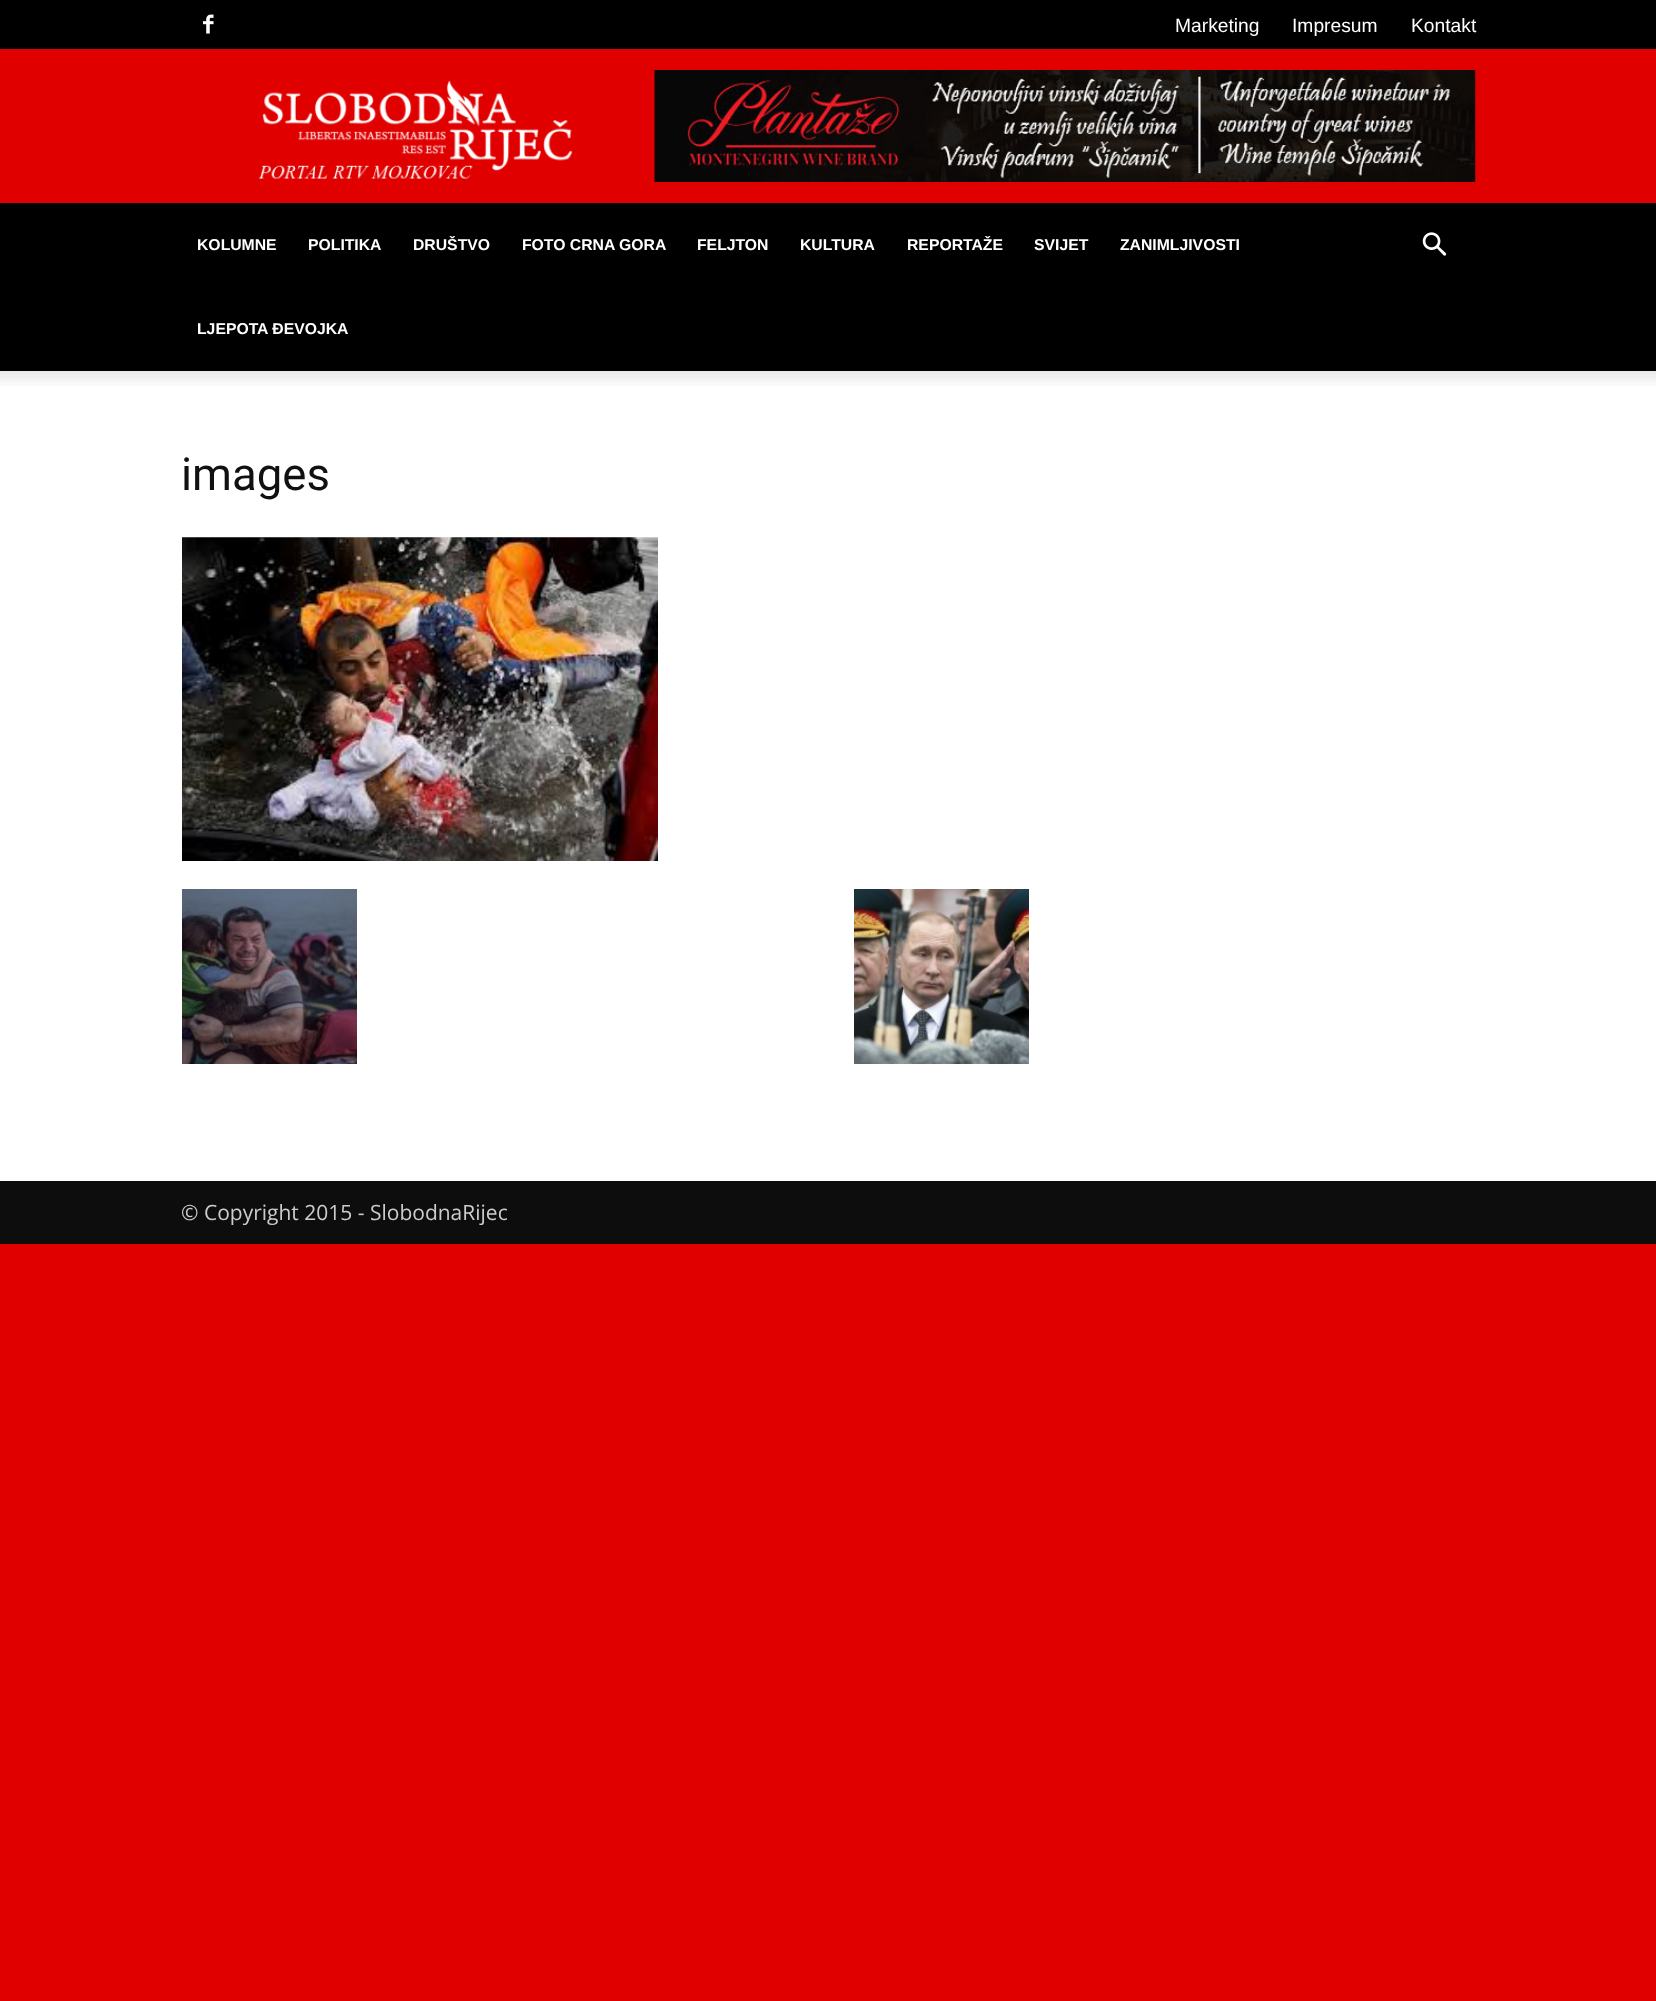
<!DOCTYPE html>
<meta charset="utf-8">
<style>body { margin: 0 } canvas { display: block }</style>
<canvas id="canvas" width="1656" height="2001"></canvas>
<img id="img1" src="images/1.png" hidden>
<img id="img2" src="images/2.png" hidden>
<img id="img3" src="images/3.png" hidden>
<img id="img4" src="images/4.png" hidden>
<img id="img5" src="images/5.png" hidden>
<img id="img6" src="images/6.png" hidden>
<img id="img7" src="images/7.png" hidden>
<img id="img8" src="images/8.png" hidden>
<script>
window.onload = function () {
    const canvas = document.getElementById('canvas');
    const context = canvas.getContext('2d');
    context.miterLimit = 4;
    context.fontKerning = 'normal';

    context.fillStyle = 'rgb(224, 0, 0)';
    context.fillRect(0, 0, 1656, 2001);
    context.fillStyle = 'rgb(0, 0, 0)';
    context.fillRect(0, 0, 1656, 49);
    context.drawImage(document.getElementById('img1'), 203, 14, 11, 20);
    context.drawImage(document.getElementById('img2'), 259, 80, 314, 99);
    context.drawImage(document.getElementById('img3'), 654, 70, 822, 112);
    context.fillRect(0, 203, 1656, 168);
    context.drawImage(document.getElementById('img4'), 1422, 232, 25, 24);
    context.fillStyle = 'rgb(255, 255, 255)';
    context.fillRect(0, 371, 1656, 810);
    context.drawImage(document.getElementById('img5'), 0, 371, 1656, 15);
    context.drawImage(document.getElementById('img6'), 182, 537, 476, 324);
    context.drawImage(document.getElementById('img7'), 182, 889, 175, 175);
    context.drawImage(document.getElementById('img8'), 854, 889, 175, 175);
    context.fillStyle = 'rgb(13, 13, 13)';
    context.fillRect(0, 1181, 1656, 63);
    context.font = '19.25px Liberation Sans';
    context.fillStyle = 'rgb(255, 255, 255)';
    context.fillText('Marketing', 1175, 32);
    context.fillText('Impresum', 1292, 32);
    context.fillText('Kontakt', 1411, 32);
    context.font = 'bold 15.75px Liberation Sans';
    context.fillText('KOLUMNE', 197, 250);
    context.fillText('POLITIKA', 308, 250);
    context.fillText('DRUŠTVO', 413, 250);
    context.fillText('FOTO CRNA GORA', 522, 250);
    context.fillText('FELJTON', 697, 250);
    context.fillText('KULTURA', 800, 250);
    context.fillText('REPORTAŽE', 907, 250);
    context.fillText('SVIJET', 1034, 250);
    context.fillText('ZANIMLJIVOSTI', 1120, 250);
    context.fillText('LJEPOTA ĐEVOJKA', 197, 334);
    context.font = '45.5px Roboto';
    context.fillStyle = 'rgb(17, 17, 17)';
    context.fillText('images', 181, 490);
    context.font = '21px Open Sans';
    context.fillStyle = 'rgb(204, 204, 204)';
    context.fillText('© Copyright 2015 - SlobodnaRijec', 181, 1220);
};
</script>
